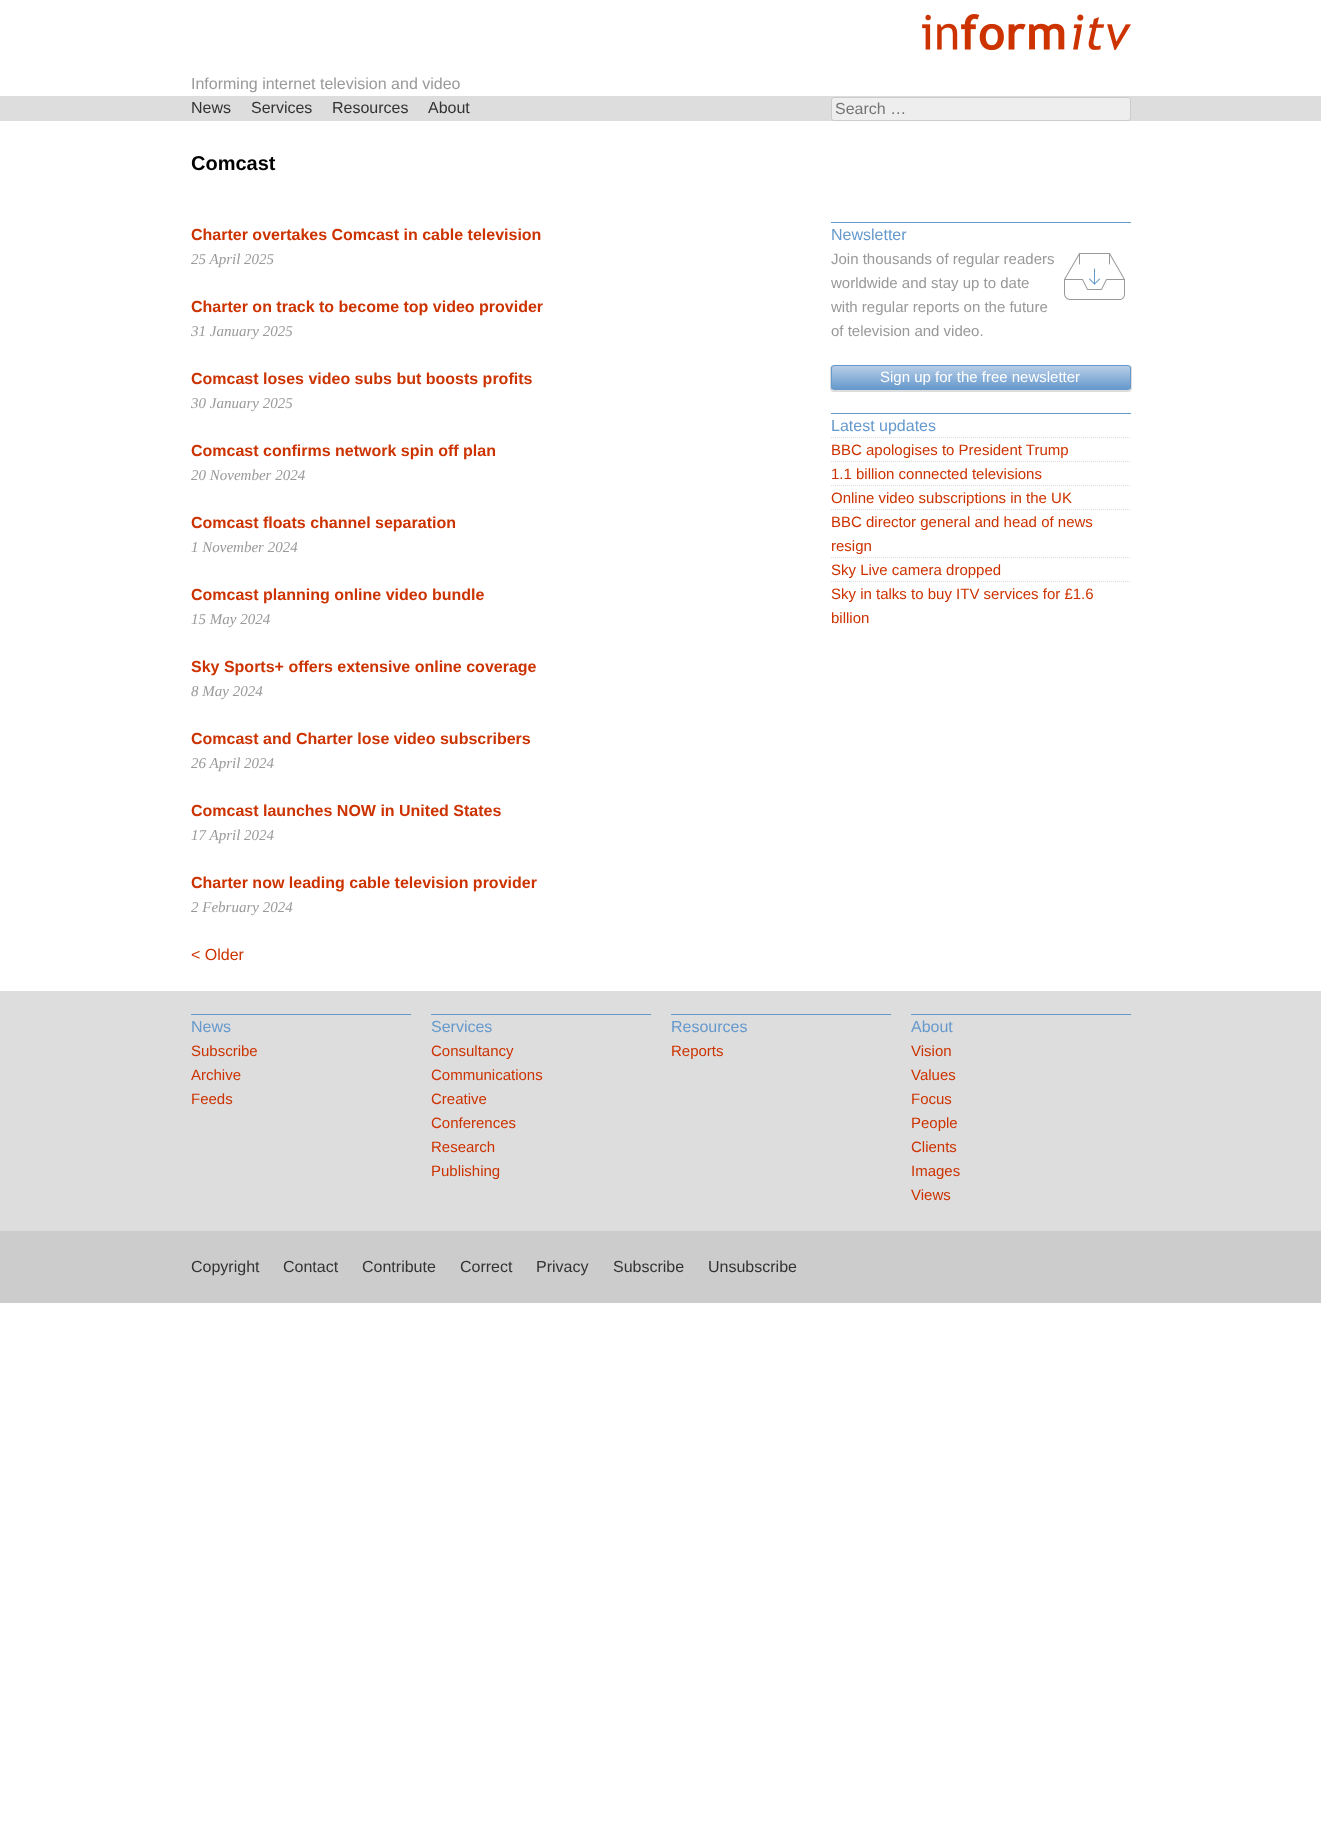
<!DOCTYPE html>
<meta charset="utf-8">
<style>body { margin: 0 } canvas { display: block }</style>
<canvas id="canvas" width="1321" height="1843"></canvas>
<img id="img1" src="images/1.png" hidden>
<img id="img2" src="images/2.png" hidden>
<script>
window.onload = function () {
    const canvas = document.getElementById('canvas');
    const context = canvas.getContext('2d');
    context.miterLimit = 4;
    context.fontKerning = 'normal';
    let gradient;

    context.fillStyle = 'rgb(255, 255, 255)';
    context.fillRect(0, 0, 1321, 1843);
    context.drawImage(document.getElementById('img1'), 922, 14, 209, 37);
    context.fillStyle = 'rgb(221, 221, 221)';
    context.fillRect(0, 96, 1321, 25);
    context.fillStyle = 'rgb(238, 238, 238)';
    context.beginPath();
    context.roundRect(831.5, 97.5, 299, 23, 2.5);
    context.fill();
    context.strokeStyle = 'rgb(204, 204, 204)';
    context.stroke();
    context.fillStyle = 'rgb(102, 153, 204)';
    context.fillRect(831, 222, 300, 1);
    context.drawImage(document.getElementById('img2'), 1064, 253, 61, 47);
    context.save();
    context.beginPath();
    context.moveTo(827, 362);
    context.lineTo(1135, 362);
    context.lineTo(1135, 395);
    context.lineTo(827, 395);
    context.closePath();
    context.moveTo(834, 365);
    context.lineTo(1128, 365);
    context.bezierCurveTo(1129.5, 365, 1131, 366.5, 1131, 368);
    context.lineTo(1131, 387);
    context.bezierCurveTo(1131, 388.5, 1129.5, 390, 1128, 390);
    context.lineTo(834, 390);
    context.bezierCurveTo(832.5, 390, 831, 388.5, 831, 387);
    context.lineTo(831, 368);
    context.bezierCurveTo(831, 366.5, 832.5, 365, 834, 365);
    context.closePath();
    context.clip('evenodd');
    context.fillStyle = 'rgb(221, 221, 221)';
    context.filter = 'blur(0.5px)';
    context.beginPath();
    context.roundRect(830, 365, 302, 27, 4);
    context.fill();
    context.filter = 'none';
    context.restore();
    context.save();
    context.beginPath();
    context.roundRect(831, 365, 300, 25, 3);
    context.clip();
    gradient = context.createLinearGradient(832, 366, 832, 389);
    gradient.addColorStop(0.05, 'rgb(179, 203, 230)');
    gradient.addColorStop(1, 'rgb(102, 153, 204)');
    context.fillStyle = gradient;
    context.fillRect(831, 366, 300, 23);
    context.restore();
    context.beginPath();
    context.roundRect(831.5, 365.5, 299, 24, 2.5);
    context.strokeStyle = 'rgb(102, 153, 204)';
    context.stroke();
    context.fillRect(831, 413, 300, 1);
    context.beginPath();
    context.moveTo(831, 437.5);
    context.lineTo(1131, 437.5);
    context.strokeStyle = 'rgb(221, 221, 221)';
    context.setLineDash([1, 1]);
    context.stroke();
    context.beginPath();
    context.moveTo(831, 461.5);
    context.lineTo(1131, 461.5);
    context.stroke();
    context.beginPath();
    context.moveTo(831, 485.5);
    context.lineTo(1131, 485.5);
    context.stroke();
    context.beginPath();
    context.moveTo(831, 509.5);
    context.lineTo(1131, 509.5);
    context.stroke();
    context.beginPath();
    context.moveTo(831, 557.5);
    context.lineTo(1131, 557.5);
    context.stroke();
    context.beginPath();
    context.moveTo(831, 581.5);
    context.lineTo(1131, 581.5);
    context.stroke();
    context.fillStyle = 'rgb(221, 221, 221)';
    context.fillRect(0, 991, 1321, 240);
    context.fillStyle = 'rgb(102, 153, 204)';
    context.fillRect(191, 1014, 220, 1);
    context.fillRect(431, 1014, 220, 1);
    context.fillRect(671, 1014, 220, 1);
    context.fillRect(911, 1014, 220, 1);
    context.fillStyle = 'rgb(204, 204, 204)';
    context.fillRect(0, 1231, 1321, 72);
    context.font = '16px Liberation Sans';
    context.fillStyle = 'rgb(153, 153, 153)';
    context.fillText('Informing internet television and video', 191, 89);
    context.fillStyle = 'rgb(51, 51, 51)';
    context.fillText('News', 191, 113);
    context.fillText('Services', 251, 113);
    context.fillText('Resources', 332, 113);
    context.fillText('About', 428, 113);
    context.fillStyle = 'rgb(117, 117, 117)';
    context.fillText('Search …', 835, 114);
    context.font = 'bold 20px Liberation Sans';
    context.fillStyle = 'rgb(0, 0, 0)';
    context.fillText('Comcast', 191, 170);
    context.font = 'bold 16px Liberation Sans';
    context.fillStyle = 'rgb(204, 51, 0)';
    context.fillText('Charter overtakes Comcast in cable television', 191, 240);
    context.font = 'italic 15px Liberation Serif';
    context.fillStyle = 'rgb(153, 153, 153)';
    context.fillText('25 April 2025', 191, 264);
    context.font = 'bold 16px Liberation Sans';
    context.fillStyle = 'rgb(204, 51, 0)';
    context.fillText('Charter on track to become top video provider', 191, 312);
    context.font = 'italic 15px Liberation Serif';
    context.fillStyle = 'rgb(153, 153, 153)';
    context.fillText('31 January 2025', 191, 336);
    context.font = 'bold 16px Liberation Sans';
    context.fillStyle = 'rgb(204, 51, 0)';
    context.fillText('Comcast loses video subs but boosts profits', 191, 384);
    context.font = 'italic 15px Liberation Serif';
    context.fillStyle = 'rgb(153, 153, 153)';
    context.fillText('30 January 2025', 191, 408);
    context.font = 'bold 16px Liberation Sans';
    context.fillStyle = 'rgb(204, 51, 0)';
    context.fillText('Comcast confirms network spin off plan', 191, 456);
    context.font = 'italic 15px Liberation Serif';
    context.fillStyle = 'rgb(153, 153, 153)';
    context.fillText('20 November 2024', 191, 480);
    context.font = 'bold 16px Liberation Sans';
    context.fillStyle = 'rgb(204, 51, 0)';
    context.fillText('Comcast floats channel separation', 191, 528);
    context.font = 'italic 15px Liberation Serif';
    context.fillStyle = 'rgb(153, 153, 153)';
    context.fillText('1 November 2024', 191, 552);
    context.font = 'bold 16px Liberation Sans';
    context.fillStyle = 'rgb(204, 51, 0)';
    context.fillText('Comcast planning online video bundle', 191, 600);
    context.font = 'italic 15px Liberation Serif';
    context.fillStyle = 'rgb(153, 153, 153)';
    context.fillText('15 May 2024', 191, 624);
    context.font = 'bold 16px Liberation Sans';
    context.fillStyle = 'rgb(204, 51, 0)';
    context.fillText('Sky Sports+ offers extensive online coverage', 191, 672);
    context.font = 'italic 15px Liberation Serif';
    context.fillStyle = 'rgb(153, 153, 153)';
    context.fillText('8 May 2024', 191, 696);
    context.font = 'bold 16px Liberation Sans';
    context.fillStyle = 'rgb(204, 51, 0)';
    context.fillText('Comcast and Charter lose video subscribers', 191, 744);
    context.font = 'italic 15px Liberation Serif';
    context.fillStyle = 'rgb(153, 153, 153)';
    context.fillText('26 April 2024', 191, 768);
    context.font = 'bold 16px Liberation Sans';
    context.fillStyle = 'rgb(204, 51, 0)';
    context.fillText('Comcast launches NOW in United States', 191, 816);
    context.font = 'italic 15px Liberation Serif';
    context.fillStyle = 'rgb(153, 153, 153)';
    context.fillText('17 April 2024', 191, 840);
    context.font = 'bold 16px Liberation Sans';
    context.fillStyle = 'rgb(204, 51, 0)';
    context.fillText('Charter now leading cable television provider', 191, 888);
    context.font = 'italic 15px Liberation Serif';
    context.fillStyle = 'rgb(153, 153, 153)';
    context.fillText('2 February 2024', 191, 912);
    context.font = '16px Liberation Sans';
    context.fillStyle = 'rgb(204, 51, 0)';
    context.fillText('< Older', 191, 960);
    context.fillStyle = 'rgb(102, 153, 204)';
    context.fillText('Newsletter', 831, 240);
    context.font = '15px Liberation Sans';
    context.fillStyle = 'rgb(153, 153, 153)';
    context.fillText('Join thousands of regular readers', 831, 264);
    context.fillText('worldwide and stay up to date', 831, 288);
    context.fillText('with regular reports on the future', 831, 312);
    context.fillText('of television and video.', 831, 336);
    context.fillStyle = 'rgb(255, 255, 255)';
    context.fillText('Sign up for the free newsletter', 880, 382);
    context.font = '16px Liberation Sans';
    context.fillStyle = 'rgb(102, 153, 204)';
    context.fillText('Latest updates', 831, 431);
    context.font = '15px Liberation Sans';
    context.fillStyle = 'rgb(204, 51, 0)';
    context.fillText('BBC apologises to President Trump', 831, 455);
    context.fillText('1.1 billion connected televisions', 831, 479);
    context.fillText('Online video subscriptions in the UK', 831, 503);
    context.fillText('BBC director general and head of news', 831, 527);
    context.fillText('resign', 831, 551);
    context.fillText('Sky Live camera dropped', 831, 575);
    context.fillText('Sky in talks to buy ITV services for £1.6', 831, 599);
    context.fillText('billion', 831, 623);
    context.font = '16px Liberation Sans';
    context.fillStyle = 'rgb(102, 153, 204)';
    context.fillText('News', 191, 1032);
    context.font = '15px Liberation Sans';
    context.fillStyle = 'rgb(204, 51, 0)';
    context.fillText('Subscribe', 191, 1056);
    context.fillText('Archive', 191, 1080);
    context.fillText('Feeds', 191, 1104);
    context.font = '16px Liberation Sans';
    context.fillStyle = 'rgb(102, 153, 204)';
    context.fillText('Services', 431, 1032);
    context.font = '15px Liberation Sans';
    context.fillStyle = 'rgb(204, 51, 0)';
    context.fillText('Consultancy', 431, 1056);
    context.fillText('Communications', 431, 1080);
    context.fillText('Creative', 431, 1104);
    context.fillText('Conferences', 431, 1128);
    context.fillText('Research', 431, 1152);
    context.fillText('Publishing', 431, 1176);
    context.font = '16px Liberation Sans';
    context.fillStyle = 'rgb(102, 153, 204)';
    context.fillText('Resources', 671, 1032);
    context.font = '15px Liberation Sans';
    context.fillStyle = 'rgb(204, 51, 0)';
    context.fillText('Reports', 671, 1056);
    context.font = '16px Liberation Sans';
    context.fillStyle = 'rgb(102, 153, 204)';
    context.fillText('About', 911, 1032);
    context.font = '15px Liberation Sans';
    context.fillStyle = 'rgb(204, 51, 0)';
    context.fillText('Vision', 911, 1056);
    context.fillText('Values', 911, 1080);
    context.fillText('Focus', 911, 1104);
    context.fillText('People', 911, 1128);
    context.fillText('Clients', 911, 1152);
    context.fillText('Images', 911, 1176);
    context.fillText('Views', 911, 1200);
    context.font = '16px Liberation Sans';
    context.fillStyle = 'rgb(51, 51, 51)';
    context.fillText('Copyright', 191, 1272);
    context.fillText('Contact', 283, 1272);
    context.fillText('Contribute', 362, 1272);
    context.fillText('Correct', 460, 1272);
    context.fillText('Privacy', 536, 1272);
    context.fillText('Subscribe', 613, 1272);
    context.fillText('Unsubscribe', 708, 1272);
};
</script>
